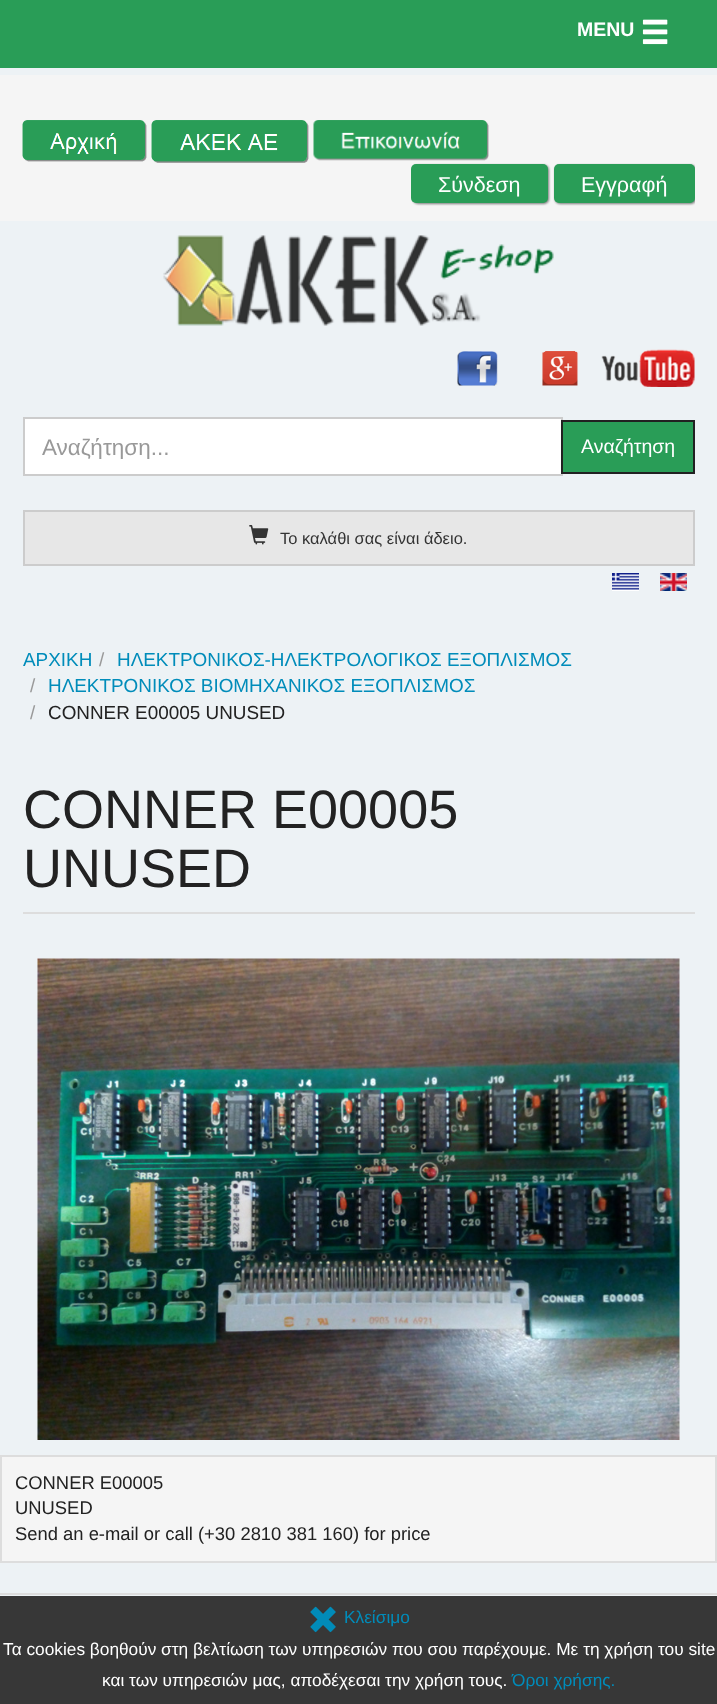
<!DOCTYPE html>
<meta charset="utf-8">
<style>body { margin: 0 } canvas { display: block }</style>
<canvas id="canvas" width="717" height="1704"></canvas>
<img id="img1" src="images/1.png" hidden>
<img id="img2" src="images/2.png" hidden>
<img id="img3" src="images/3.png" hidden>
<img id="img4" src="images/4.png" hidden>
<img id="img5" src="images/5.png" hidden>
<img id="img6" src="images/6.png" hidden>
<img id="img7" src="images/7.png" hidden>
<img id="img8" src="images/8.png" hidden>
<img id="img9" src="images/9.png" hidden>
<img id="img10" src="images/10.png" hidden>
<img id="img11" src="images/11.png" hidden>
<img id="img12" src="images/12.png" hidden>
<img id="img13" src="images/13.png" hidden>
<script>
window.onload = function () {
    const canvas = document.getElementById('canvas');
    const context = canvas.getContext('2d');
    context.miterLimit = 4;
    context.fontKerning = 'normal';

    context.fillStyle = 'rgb(237, 242, 245)';
    context.fillRect(0, 0, 717, 1704);
    context.fillStyle = 'rgb(55, 55, 55)';
    context.fillRect(0, 1596, 717, 108);
    context.fillStyle = 'rgb(41, 157, 87)';
    context.fillRect(0, 0, 717, 68);
    context.drawImage(document.getElementById('img1'), 642, 19, 26, 26);
    context.fillStyle = 'rgb(245, 245, 245)';
    context.fillRect(0, 75, 717, 146);
    context.drawImage(document.getElementById('img2'), 22, 120, 125, 42);
    context.drawImage(document.getElementById('img3'), 151, 120, 158, 43);
    context.drawImage(document.getElementById('img4'), 313, 120, 176, 41);
    context.fillStyle = 'rgba(0, 0, 0, 0.5)';
    context.filter = 'blur(1px)';
    context.beginPath();
    context.roundRect(413, 165, 136, 39, 5);
    context.fill();
    context.filter = 'none';
    context.fillStyle = 'rgb(41, 157, 87)';
    context.beginPath();
    context.roundRect(411, 164, 137, 39, 5);
    context.fill();
    context.save();
    context.beginPath();
    context.rect(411, 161, 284, 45);
    context.clip();
    context.fillStyle = 'rgba(0, 0, 0, 0.5)';
    context.filter = 'blur(1px)';
    context.beginPath();
    context.roundRect(555, 165, 141, 39, 5);
    context.fill();
    context.filter = 'none';
    context.restore();
    context.beginPath();
    context.roundRect(554, 164, 141, 39, 5);
    context.fill();
    context.drawImage(document.getElementById('img5'), 163, 235, 391, 91);
    context.drawImage(document.getElementById('img6'), 457, 351, 41, 35);
    context.drawImage(document.getElementById('img7'), 542, 351, 36, 35);
    context.drawImage(document.getElementById('img8'), 601, 349, 94, 38);
    context.fillStyle = 'rgb(255, 255, 255)';
    context.beginPath();
    context.rect(24, 418, 538, 57);
    context.fill();
    context.strokeStyle = 'rgb(204, 204, 204)';
    context.lineWidth = 2;
    context.stroke();
    context.fillStyle = 'rgb(41, 157, 87)';
    context.beginPath();
    context.rect(562, 421, 132, 52);
    context.fill();
    context.strokeStyle = 'rgb(33, 33, 33)';
    context.stroke();
    context.fillStyle = 'rgb(231, 231, 231)';
    context.beginPath();
    context.rect(24, 511, 670, 54);
    context.fill();
    context.strokeStyle = 'rgb(204, 204, 204)';
    context.stroke();
    context.drawImage(document.getElementById('img9'), 249, 525, 20, 20);
    context.drawImage(document.getElementById('img10'), 612, 573, 27, 18);
    context.drawImage(document.getElementById('img11'), 660, 573, 27, 18);
    context.fillStyle = 'rgb(221, 221, 221)';
    context.fillRect(23, 912, 672, 2);
    context.drawImage(document.getElementById('img12'), 37, 958, 643, 482);
    context.fillStyle = 'rgb(245, 245, 245)';
    context.beginPath();
    context.rect(1, 1456, 715, 106);
    context.fill();
    context.strokeStyle = 'rgb(221, 221, 221)';
    context.stroke();
    context.fillStyle = 'rgb(221, 221, 221)';
    context.fillRect(0, 1593, 717, 2);
    context.drawImage(document.getElementById('img13'), 310, 1606, 26, 27);
    context.font = 'bold 19.5px Liberation Sans';
    context.fillStyle = 'rgb(255, 255, 255)';
    context.fillText('MENU', 577, 36);
    context.font = '21.5px Liberation Sans';
    context.fillText('Σύνδεση', 438, 192);
    context.fillText('Εγγραφή', 581, 192);
    context.save();
    context.beginPath();
    context.rect(42, 434, 501, 25);
    context.clip();
    context.font = '22.5px Liberation Sans';
    context.fillStyle = 'rgb(153, 153, 153)';
    context.fillText('Αναζήτηση...', 42, 455);
    context.restore();
    context.font = '19.5px Liberation Sans';
    context.fillText('Αναζήτηση', 581, 453);
    context.font = '16.5px Liberation Sans';
    context.fillStyle = 'rgb(51, 51, 51)';
    context.fillText('Το καλάθι σας είναι άδειο.', 280, 544);
    context.font = '18.9px Liberation Sans';
    context.fillStyle = 'rgb(0, 140, 186)';
    context.fillText('ΑΡΧΙΚΗ', 23, 666);
    context.fillStyle = 'rgb(153, 153, 153)';
    context.fillText('/', 99, 666);
    context.fillStyle = 'rgb(0, 140, 186)';
    context.fillText('ΗΛΕΚΤΡΟΝΙΚΟΣ-ΗΛΕΚΤΡΟΛΟΓΙΚΟΣ ΕΞΟΠΛΙΣΜΟΣ', 117, 666);
    context.fillStyle = 'rgb(153, 153, 153)';
    context.fillText('/', 30, 692);
    context.fillStyle = 'rgb(0, 140, 186)';
    context.fillText('ΗΛΕΚΤΡΟΝΙΚΟΣ ΒΙΟΜΗΧΑΝΙΚΟΣ ΕΞΟΠΛΙΣΜΟΣ', 48, 692);
    context.fillStyle = 'rgb(153, 153, 153)';
    context.fillText('/', 30, 719);
    context.fillStyle = 'rgb(34, 34, 34)';
    context.fillText('CONNER E00005 UNUSED', 48, 719);
    context.font = '54px Liberation Sans';
    context.fillText('CONNER E00005', 23, 828);
    context.fillText('UNUSED', 23, 887);
    context.font = '18.4px Liberation Sans';
    context.fillText('CONNER E00005', 15, 1489);
    context.fillText('UNUSED', 15, 1514);
    context.fillText('Send an e-mail or call (+30 2810 381 160) for price', 15, 1540);
    context.font = '17.3px Liberation Sans';
    context.fillStyle = 'rgb(0, 140, 186)';
    context.fillText('Κλείσιμο', 344, 1623);
    context.fillStyle = 'rgb(255, 255, 255)';
    context.fillText('Τα cookies βοηθούν στη βελτίωση των υπηρεσιών που σου παρέχουμε. Με τη χρήση του site', 3, 1655);
    context.fillText('και των υπηρεσιών μας, αποδέχεσαι την χρήση τους.', 102, 1686);
    context.fillStyle = 'rgb(0, 140, 186)';
    context.fillText('Όροι χρήσης.', 512, 1686);
};
</script>
